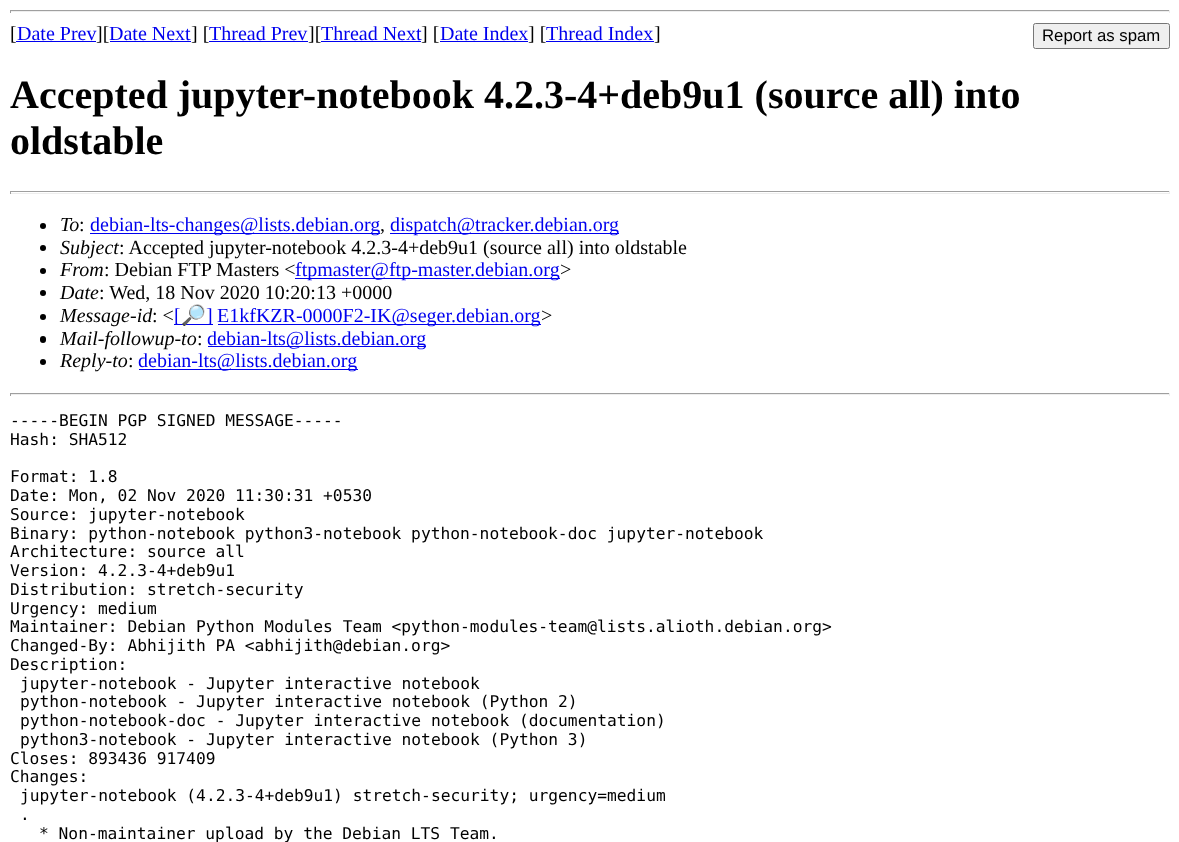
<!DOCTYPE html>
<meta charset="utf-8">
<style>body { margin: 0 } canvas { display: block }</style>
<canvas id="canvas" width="1179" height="842"></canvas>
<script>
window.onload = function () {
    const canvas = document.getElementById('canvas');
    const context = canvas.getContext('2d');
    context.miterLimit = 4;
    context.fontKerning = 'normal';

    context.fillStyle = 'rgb(255, 255, 255)';
    context.fillRect(0, 0, 1179, 842);
    context.fillStyle = 'rgb(159, 159, 159)';
    context.fillRect(10, 10, 1160, 1);
    context.fillStyle = 'rgb(238, 238, 238)';
    context.fillRect(1169, 10, 1, 3);
    context.fillRect(10, 11, 1160, 1);
    context.fillStyle = 'rgb(159, 159, 159)';
    context.fillRect(10, 10, 1, 3);
    context.fillStyle = 'rgb(0, 0, 238)';
    context.fillRect(16, 41, 80, 1);
    context.fillRect(110, 41, 81, 1);
    context.fillRect(209, 41, 99, 1);
    context.fillRect(321, 41, 100, 1);
    context.fillRect(440, 41, 88, 1);
    context.fillRect(546, 41, 108, 1);
    context.fillStyle = 'rgb(239, 239, 239)';
    context.beginPath();
    context.roundRect(1033.5, 23.5, 136, 25, 2);
    context.fill();
    context.strokeStyle = 'rgb(118, 118, 118)';
    context.stroke();
    context.fillStyle = 'rgb(159, 159, 159)';
    context.fillRect(10, 191, 1160, 1);
    context.fillStyle = 'rgb(238, 238, 238)';
    context.fillRect(1169, 191, 1, 3);
    context.fillRect(10, 193, 1160, 1);
    context.fillStyle = 'rgb(159, 159, 159)';
    context.fillRect(10, 191, 1, 3);
    context.fillStyle = 'rgb(0, 0, 0)';
    context.beginPath();
    context.arc(43, 226, 3, 0, 2 * Math.PI);
    context.fill();
    context.fillStyle = 'rgb(0, 0, 238)';
    context.fillRect(90, 233, 290, 1);
    context.fillRect(390, 233, 229, 1);
    context.fillStyle = 'rgb(0, 0, 0)';
    context.beginPath();
    context.arc(43, 248, 3, 0, 2 * Math.PI);
    context.fill();
    context.beginPath();
    context.arc(43, 271, 3, 0, 2 * Math.PI);
    context.fill();
    context.fillStyle = 'rgb(0, 0, 238)';
    context.fillRect(295, 278, 265, 1);
    context.fillStyle = 'rgb(0, 0, 0)';
    context.beginPath();
    context.arc(43, 293, 3, 0, 2 * Math.PI);
    context.fill();
    context.beginPath();
    context.arc(43, 317, 3, 0, 2 * Math.PI);
    context.fill();
    context.fillStyle = 'rgb(0, 0, 238)';
    context.fillRect(174, 324, 39, 1);
    context.fillRect(218, 324, 323, 1);
    context.fillStyle = 'rgb(0, 0, 0)';
    context.beginPath();
    context.roundRect(40, 336, 6, 7, 3);
    context.fill();
    context.fillStyle = 'rgb(0, 0, 238)';
    context.fillRect(208, 346, 218, 1);
    context.fillStyle = 'rgb(0, 0, 0)';
    context.beginPath();
    context.arc(43, 362, 3, 0, 2 * Math.PI);
    context.fill();
    context.fillStyle = 'rgb(0, 0, 238)';
    context.fillRect(139, 369, 219, 1);
    context.fillStyle = 'rgb(159, 159, 159)';
    context.fillRect(10, 393, 1160, 1);
    context.fillStyle = 'rgb(238, 238, 238)';
    context.fillRect(1169, 393, 1, 3);
    context.fillRect(10, 394, 1160, 1);
    context.fillStyle = 'rgb(159, 159, 159)';
    context.fillRect(10, 393, 1, 3);
    context.font = '20px Liberation Serif';
    context.fillStyle = 'rgb(0, 0, 0)';
    context.fillText('[', 10, 40);
    context.fillStyle = 'rgb(0, 0, 238)';
    context.fillText('Date Prev', 17, 40);
    context.fillStyle = 'rgb(0, 0, 0)';
    context.fillText('][', 96, 40);
    context.fillStyle = 'rgb(0, 0, 238)';
    context.fillText('Date Next', 109, 40);
    context.fillStyle = 'rgb(0, 0, 0)';
    context.fillText('] [', 191, 40);
    context.fillStyle = 'rgb(0, 0, 238)';
    context.fillText('Thread Prev', 209, 40);
    context.fillStyle = 'rgb(0, 0, 0)';
    context.fillText('][', 308, 40);
    context.fillStyle = 'rgb(0, 0, 238)';
    context.fillText('Thread Next', 321, 40);
    context.fillStyle = 'rgb(0, 0, 0)';
    context.fillText('] [', 421, 40);
    context.fillStyle = 'rgb(0, 0, 238)';
    context.fillText('Date Index', 440, 40);
    context.fillStyle = 'rgb(0, 0, 0)';
    context.fillText('] [', 528, 40);
    context.fillStyle = 'rgb(0, 0, 238)';
    context.fillText('Thread Index', 546, 40);
    context.fillStyle = 'rgb(0, 0, 0)';
    context.fillText(']', 654, 40);
    context.font = '16.75px Liberation Sans';
    context.fillText('Report as spam', 1042, 41);
    context.font = 'bold 40px Liberation Serif';
    context.fillText('Accepted jupyter-notebook 4.2.3-4+deb9u1 (source all) into', 10, 108);
    context.fillText('oldstable', 10, 154);
    context.font = 'italic 20px Liberation Serif';
    context.fillText('To', 60, 231);
    context.font = '20px Liberation Serif';
    context.fillText(':', 79, 231);
    context.fillStyle = 'rgb(0, 0, 238)';
    context.fillText('debian-lts-changes@lists.debian.org', 90, 231);
    context.fillText('dispatch@tracker.debian.org', 390, 231);
    context.fillStyle = 'rgb(0, 0, 0)';
    context.fillText(',', 380, 231);
    context.font = 'italic 20px Liberation Serif';
    context.fillText('Subject', 60, 254);
    context.font = '20px Liberation Serif';
    context.fillText(': Accepted jupyter-notebook 4.2.3-4+deb9u1 (source all) into oldstable', 119, 254);
    context.font = 'italic 20px Liberation Serif';
    context.fillText('From', 60, 276);
    context.font = '20px Liberation Serif';
    context.fillText(': Debian FTP Masters <', 104, 276);
    context.fillStyle = 'rgb(0, 0, 238)';
    context.fillText('ftpmaster@ftp-master.debian.org', 295, 276);
    context.fillStyle = 'rgb(0, 0, 0)';
    context.fillText('>', 560, 276);
    context.font = 'italic 20px Liberation Serif';
    context.fillText('Date', 60, 299);
    context.font = '20px Liberation Serif';
    context.fillText(': Wed, 18 Nov 2020 10:20:13 +0000', 99, 299);
    context.font = 'italic 20px Liberation Serif';
    context.fillText('Message-id', 60, 322);
    context.font = '20px Liberation Serif';
    context.fillText(': <', 152, 322);
    context.fillStyle = 'rgb(0, 0, 238)';
    context.fillText('[', 174, 322);
    context.font = '20px Noto Color Emoji';
    context.fillText('🔎', 181, 322);
    context.font = '20px Liberation Serif';
    context.fillText(']', 206, 322);
    context.fillText('E1kfKZR-0000F2-IK@seger.debian.org', 217, 322);
    context.fillStyle = 'rgb(0, 0, 0)';
    context.fillText('>', 541, 322);
    context.font = 'italic 20px Liberation Serif';
    context.fillText('Mail-followup-to', 60, 345);
    context.font = '20px Liberation Serif';
    context.fillText(':', 197, 345);
    context.fillStyle = 'rgb(0, 0, 238)';
    context.fillText('debian-lts@lists.debian.org', 207, 345);
    context.font = 'italic 20px Liberation Serif';
    context.fillStyle = 'rgb(0, 0, 0)';
    context.fillText('Reply-to', 60, 367);
    context.font = '20px Liberation Serif';
    context.fillText(':', 128, 367);
    context.fillStyle = 'rgb(0, 0, 238)';
    context.fillText('debian-lts@lists.debian.org', 138, 367);
    context.font = '16.25px DejaVu Sans Mono';
    context.fillStyle = 'rgb(0, 0, 0)';
    context.fillText('-----BEGIN PGP SIGNED MESSAGE-----', 10, 426);
    context.fillText('Hash: SHA512', 10, 445);
    context.fillText('Format: 1.8', 10, 482);
    context.fillText('Date: Mon, 02 Nov 2020 11:30:31 +0530', 10, 501);
    context.fillText('Source: jupyter-notebook', 10, 520);
    context.fillText('Binary: python-notebook python3-notebook python-notebook-doc jupyter-notebook', 10, 539);
    context.fillText('Architecture: source all', 10, 557);
    context.fillText('Version: 4.2.3-4+deb9u1', 10, 576);
    context.fillText('Distribution: stretch-security', 10, 595);
    context.fillText('Urgency: medium', 10, 614);
    context.fillText('Maintainer: Debian Python Modules Team <python-modules-team@lists.alioth.debian.org>', 10, 632);
    context.fillText('Changed-By: Abhijith PA <abhijith@debian.org>', 10, 651);
    context.fillText('Description:', 10, 670);
    context.fillText('jupyter-notebook - Jupyter interactive notebook', 20, 689);
    context.fillText('python-notebook - Jupyter interactive notebook (Python 2)', 20, 707);
    context.fillText('python-notebook-doc - Jupyter interactive notebook (documentation)', 20, 726);
    context.fillText('python3-notebook - Jupyter interactive notebook (Python 3)', 20, 745);
    context.fillText('Closes: 893436 917409', 10, 764);
    context.fillText('Changes:', 10, 782);
    context.fillText('jupyter-notebook (4.2.3-4+deb9u1) stretch-security; urgency=medium', 20, 801);
    context.fillText('.', 20, 820);
    context.fillText('* Non-maintainer upload by the Debian LTS Team.', 39, 839);
};
</script>
